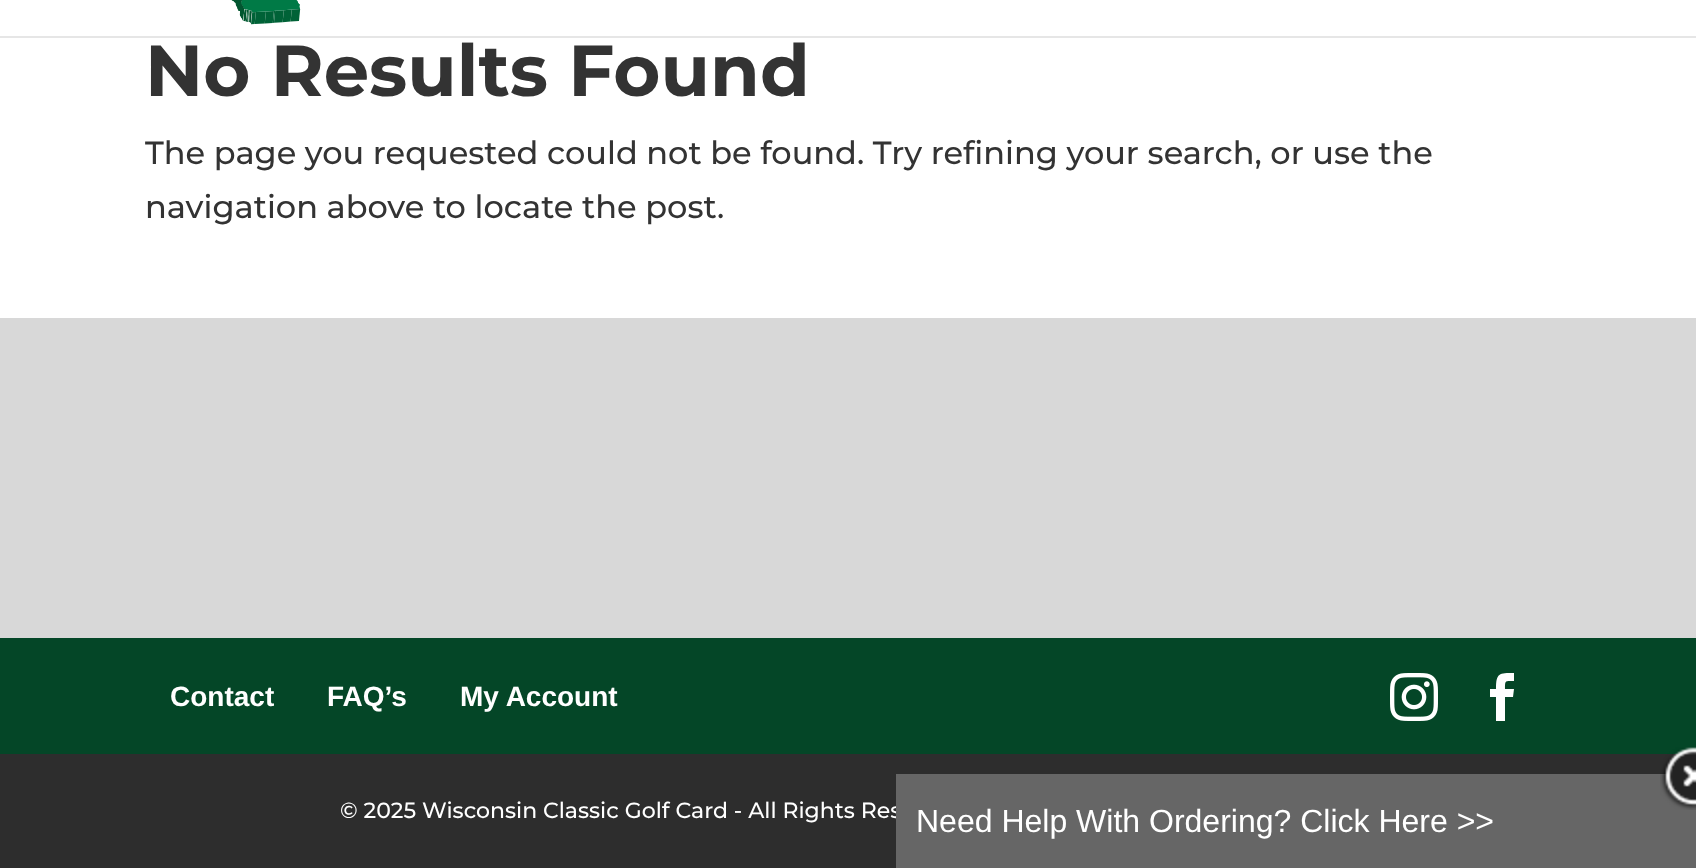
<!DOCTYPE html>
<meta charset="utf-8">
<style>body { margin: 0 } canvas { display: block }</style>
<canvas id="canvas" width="1696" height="868"></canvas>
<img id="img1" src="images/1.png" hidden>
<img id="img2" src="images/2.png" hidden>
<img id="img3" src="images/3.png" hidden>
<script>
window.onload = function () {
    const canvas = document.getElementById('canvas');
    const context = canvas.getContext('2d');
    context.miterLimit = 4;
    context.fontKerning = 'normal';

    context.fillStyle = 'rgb(255, 255, 255)';
    context.fillRect(0, 0, 1696, 868);
    context.fillStyle = 'rgb(230, 230, 230)';
    context.fillRect(0, 36, 1696, 2);
    context.drawImage(document.getElementById('img1'), 231, 0, 70, 25);
    context.fillStyle = 'rgb(216, 216, 216)';
    context.fillRect(0, 318, 1696, 320);
    context.fillStyle = 'rgb(4, 70, 39)';
    context.fillRect(0, 638, 1696, 116);
    context.drawImage(document.getElementById('img2'), 1390, 673, 48, 48);
    context.fillStyle = 'rgb(255, 255, 255)';
    context.beginPath();
    context.moveTo(1496, 721);
    context.lineTo(1505, 721);
    context.lineTo(1505, 697);
    context.lineTo(1513, 697);
    context.lineTo(1514, 689);
    context.lineTo(1505, 689);
    context.bezierCurveTo(1505, 680, 1505, 681, 1514, 681);
    context.lineTo(1514, 673);
    context.bezierCurveTo(1499, 673, 1496, 673, 1496, 689);
    context.lineTo(1490, 689);
    context.lineTo(1490, 697);
    context.lineTo(1496, 697);
    context.closePath();
    context.fill();
    context.fillStyle = 'rgb(45, 45, 45)';
    context.fillRect(0, 754, 1681, 114);
    context.font = 'bold 72px Montserrat';
    context.fillStyle = 'rgb(51, 51, 51)';
    context.fillText('No Results Found', 145, 96);
    context.font = '500 32px Montserrat';
    context.fillText('The page you requested could not be found. Try refining your search, or use the', 145, 164);
    context.fillText('navigation above to locate the post.', 145, 218);
    context.font = 'bold 28px Liberation Sans';
    context.fillStyle = 'rgb(255, 255, 255)';
    context.fillText('Contact', 170, 706);
    context.fillText('FAQ’s', 327, 706);
    context.fillText('My Account', 460, 706);
    context.font = '500 22px Montserrat';
    context.fillText('© 2025 Wisconsin Classic Golf Card - All Rights Res', 340, 818);
    context.fillStyle = 'rgb(102, 102, 102)';
    context.fillRect(896, 774, 800, 94);
    context.drawImage(document.getElementById('img3'), 1660, 747, 36, 63);
    context.font = '32px Liberation Sans';
    context.fillStyle = 'rgb(255, 255, 255)';
    context.fillText('Need Help With Ordering? Click Here >>', 916, 832);
};
</script>
